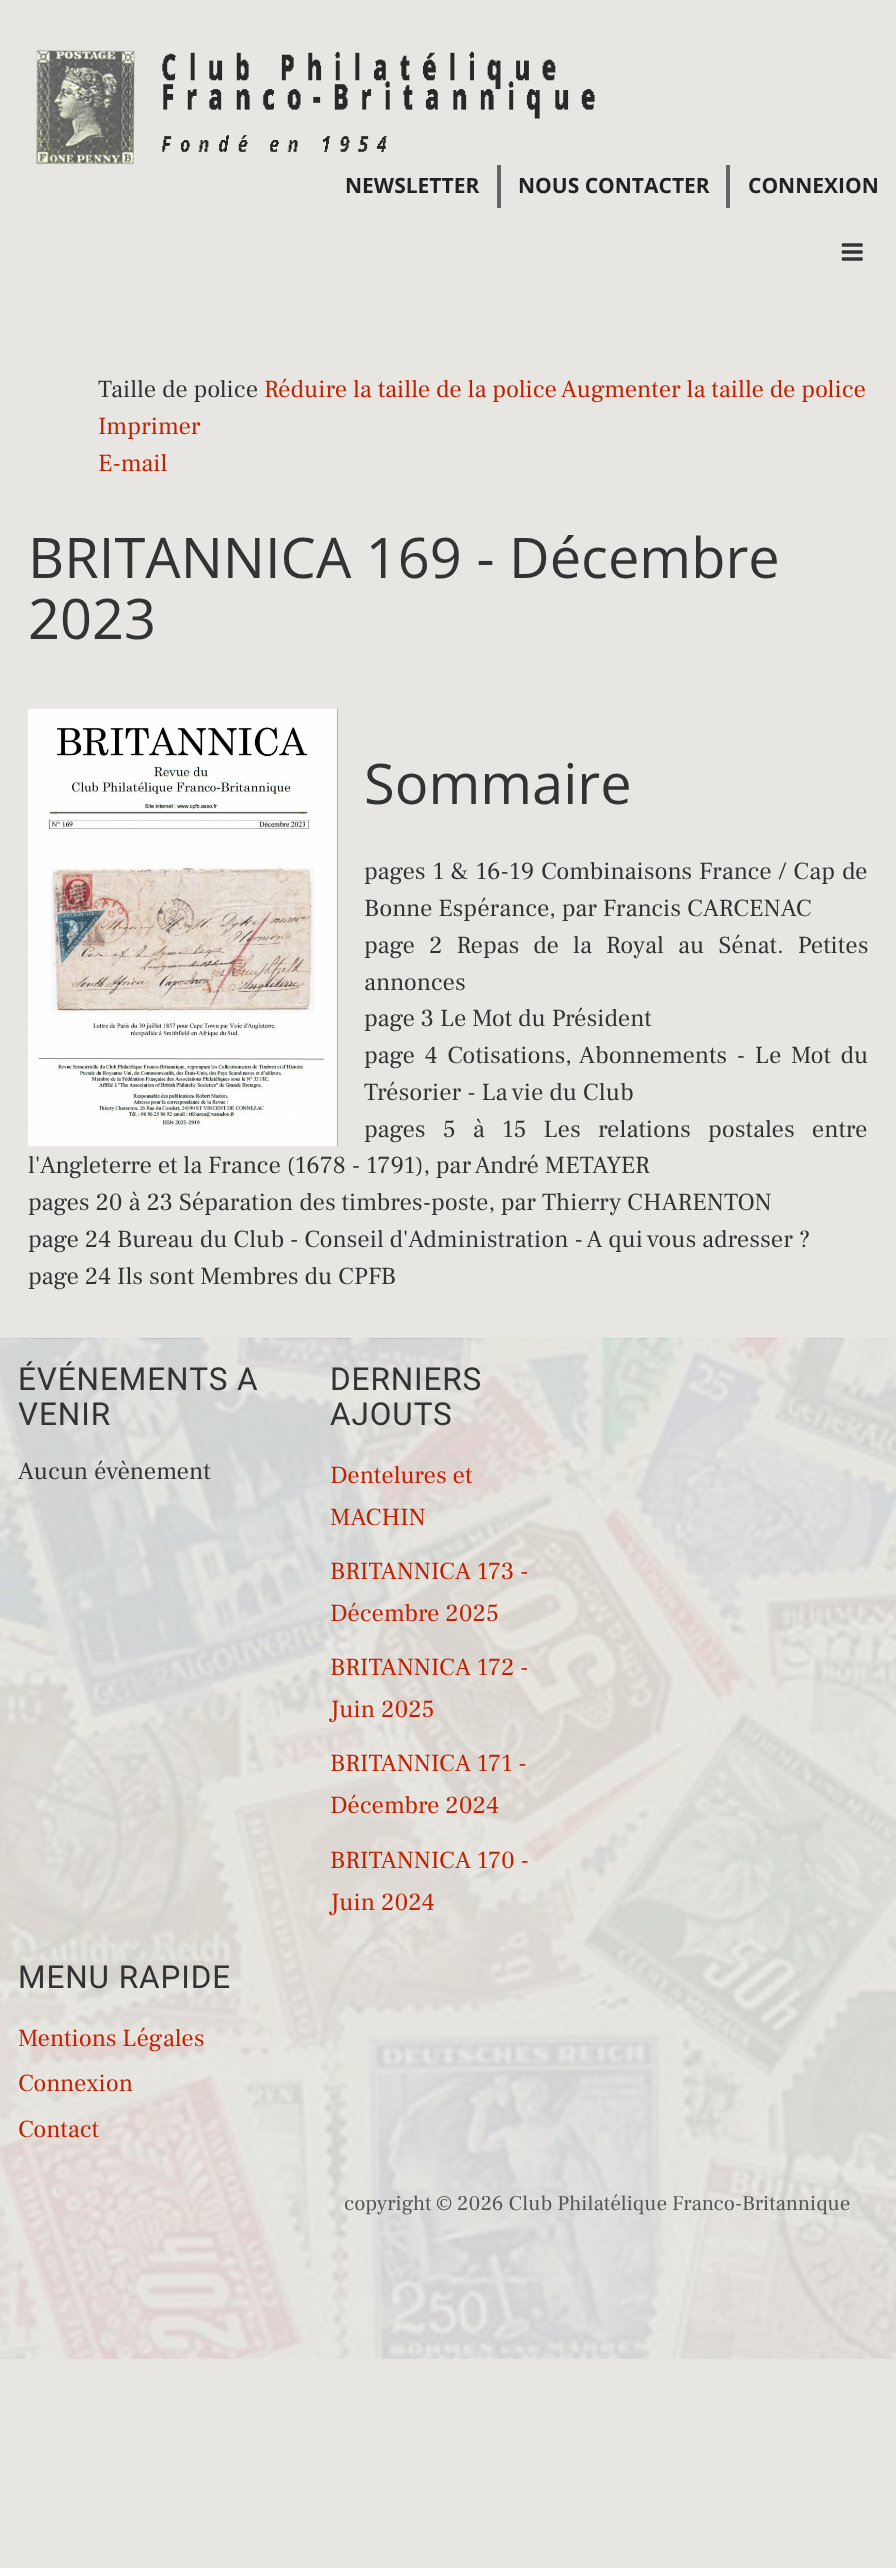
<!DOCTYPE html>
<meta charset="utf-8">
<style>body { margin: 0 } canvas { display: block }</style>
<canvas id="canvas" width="896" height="2568"></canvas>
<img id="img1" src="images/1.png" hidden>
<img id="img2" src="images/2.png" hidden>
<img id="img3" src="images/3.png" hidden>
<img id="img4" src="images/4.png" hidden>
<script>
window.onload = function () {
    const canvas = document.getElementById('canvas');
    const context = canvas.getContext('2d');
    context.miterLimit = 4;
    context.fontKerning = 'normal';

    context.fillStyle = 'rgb(231, 230, 226)';
    context.fillRect(0, 0, 896, 2568);
    context.drawImage(document.getElementById('img1'), 35, 49, 560, 116);
    context.fillStyle = 'rgb(102, 102, 102)';
    context.fillRect(497, 165, 4, 43);
    context.fillRect(726, 165, 4, 43);
    context.drawImage(document.getElementById('img2'), 841, 243, 22, 18);
    context.drawImage(document.getElementById('img3'), 28, 708, 310, 439);
    context.drawImage(document.getElementById('img4'), 0, 1338, 896, 1021);
    context.font = 'bold 21px Open Sans';
    context.fillStyle = 'rgb(34, 34, 34)';
    context.fillText('NEWSLETTER', 345, 193);
    context.fillText('NOUS CONTACTER', 518, 193);
    context.fillText('CONNEXION', 748, 193);
    context.font = '24.5px Frank Ruhl Libre';
    context.fillStyle = 'rgb(51, 51, 51)';
    context.fillText('Taille de police', 98, 397);
    context.fillStyle = 'rgb(192, 33, 0)';
    context.fillText('Réduire la taille de la police', 264, 397);
    context.fillText('Augmenter la taille de police', 561, 397);
    context.fillText('Imprimer', 98, 434);
    context.fillText('E-mail', 98, 471);
    context.font = '56px Open Sans';
    context.fillStyle = 'rgb(51, 51, 51)';
    context.fillText('BRITANNICA 169 - Décembre', 28, 578);
    context.fillText('2023', 28, 639);
    context.fillText('Sommaire', 364, 804);
    context.wordSpacing = '1px';
    context.font = '24.5px Frank Ruhl Libre';
    context.fillText('pages 1 & 16-19 Combinaisons France / Cap de', 364, 879);
    context.wordSpacing = '0px';
    context.fillText('Bonne Espérance, par Francis CARCENAC', 364, 916);
    context.wordSpacing = '8.25px';
    context.fillText('page 2 Repas de la Royal au Sénat. Petites', 364, 953);
    context.wordSpacing = '0px';
    context.fillText('annonces', 364, 990);
    context.fillText('page 3 Le Mot du Président', 364, 1026);
    context.wordSpacing = '3.75px';
    context.fillText('page 4 Cotisations, Abonnements - Le Mot du', 364, 1063);
    context.wordSpacing = '0px';
    context.fillText('Trésorier - La vie du Club', 364, 1100);
    context.wordSpacing = '11.25px';
    context.fillText('pages 5 à 15 Les relations postales entre', 364, 1137);
    context.wordSpacing = '0px';
    context.fillText('l\'Angleterre et la France (1678 - 1791), par André METAYER', 28, 1173);
    context.fillText('pages 20 à 23 Séparation des timbres-poste, par Thierry CHARENTON', 28, 1210);
    context.fillText('page 24 Bureau du Club - Conseil d\'Administration - A qui vous adresser ?', 28, 1247);
    context.fillText('page 24 Ils sont Membres du CPFB', 28, 1284);
    context.letterSpacing = '0.9px';
    context.font = '31.5px Heebo';
    context.fillText('ÉVÉNEMENTS A', 18, 1390);
    context.fillText('VENIR', 18, 1425);
    context.letterSpacing = '0px';
    context.font = '24.5px Frank Ruhl Libre';
    context.fillText('Aucun évènement', 18, 1479);
    context.letterSpacing = '0.9px';
    context.font = '31.5px Heebo';
    context.fillText('DERNIERS', 330, 1390);
    context.fillText('AJOUTS', 330, 1425);
    context.letterSpacing = '0px';
    context.font = '24.5px Frank Ruhl Libre';
    context.fillStyle = 'rgb(192, 33, 0)';
    context.fillText('Dentelures et', 330, 1483);
    context.fillText('MACHIN', 330, 1525);
    context.fillText('BRITANNICA 173 -', 330, 1579);
    context.fillText('Décembre 2025', 330, 1621);
    context.fillText('BRITANNICA 172 -', 330, 1675);
    context.fillText('Juin 2025', 330, 1717);
    context.fillText('BRITANNICA 171 -', 330, 1771);
    context.fillText('Décembre 2024', 330, 1813);
    context.fillText('BRITANNICA 170 -', 330, 1868);
    context.fillText('Juin 2024', 330, 1910);
    context.letterSpacing = '0.9px';
    context.font = '31.5px Heebo';
    context.fillStyle = 'rgb(51, 51, 51)';
    context.fillText('MENU RAPIDE', 18, 1988);
    context.letterSpacing = '0px';
    context.font = '24.5px Frank Ruhl Libre';
    context.fillStyle = 'rgb(192, 33, 0)';
    context.fillText('Mentions Légales', 18, 2046);
    context.fillText('Connexion', 18, 2091);
    context.fillText('Contact', 18, 2137);
    context.font = '21px Frank Ruhl Libre';
    context.fillStyle = 'rgb(85, 85, 85)';
    context.fillText('copyright © 2026 Club Philatélique Franco-Britannique', 344, 2210);
};
</script>
